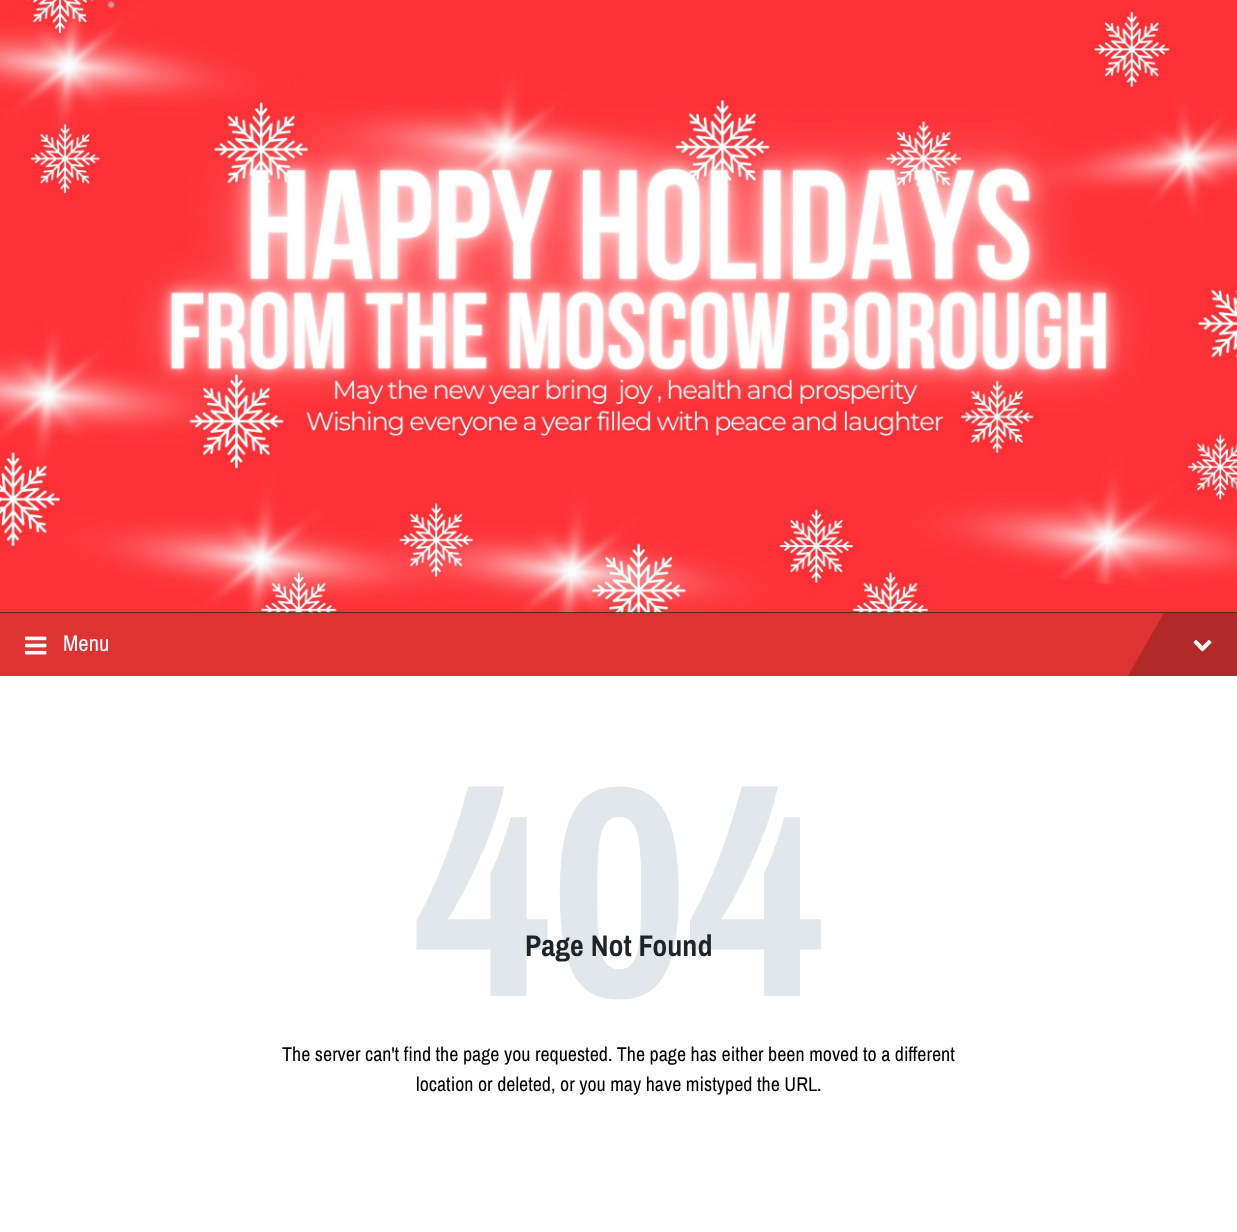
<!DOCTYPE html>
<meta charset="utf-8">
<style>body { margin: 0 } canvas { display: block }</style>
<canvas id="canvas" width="1237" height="1232"></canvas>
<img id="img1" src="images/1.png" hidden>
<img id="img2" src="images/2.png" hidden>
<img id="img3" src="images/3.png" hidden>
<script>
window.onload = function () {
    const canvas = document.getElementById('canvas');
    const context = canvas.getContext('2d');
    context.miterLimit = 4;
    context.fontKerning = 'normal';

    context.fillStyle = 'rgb(255, 255, 255)';
    context.fillRect(0, 0, 1237, 1232);
    context.fillStyle = 'rgb(30, 36, 39)';
    context.fillRect(0, 612, 1237, 1);
    context.drawImage(document.getElementById('img1'), 0, 0, 1237, 613);
    context.fillStyle = 'rgb(221, 51, 51)';
    context.fillRect(0, 613, 1164, 63);
    context.drawImage(document.getElementById('img2'), 25, 636, 22, 19);
    context.save();
    context.beginPath();
    context.rect(0, 613, 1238, 63);
    context.clip();
    context.fillStyle = 'rgb(177, 41, 41)';
    context.beginPath();
    context.moveTo(1188, 571);
    context.lineTo(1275, 621);
    context.lineTo(1212, 731);
    context.lineTo(1125, 681);
    context.closePath();
    context.fill();
    context.restore();
    context.drawImage(document.getElementById('img3'), 1193, 639, 19, 13);
    context.font = '22.5px Archivo Narrow';
    context.fillStyle = 'rgb(255, 255, 255)';
    context.fillText('Menu', 63, 651);
    context.font = 'bold 300px Archivo Narrow';
    context.fillStyle = 'rgb(225, 231, 236)';
    context.fillText('404', 414, 996);
    context.font = 'bold 30px Archivo Narrow';
    context.fillStyle = 'rgb(30, 36, 39)';
    context.fillText('Page Not Found', 525, 956);
    context.font = '20px Archivo Narrow';
    context.fillStyle = 'rgb(0, 0, 0)';
    context.fillText('The server can\'t find the page you requested. The page has either been moved to a different', 282, 1061);
    context.fillText('location or deleted, or you may have mistyped the URL.', 416, 1091);
};
</script>
